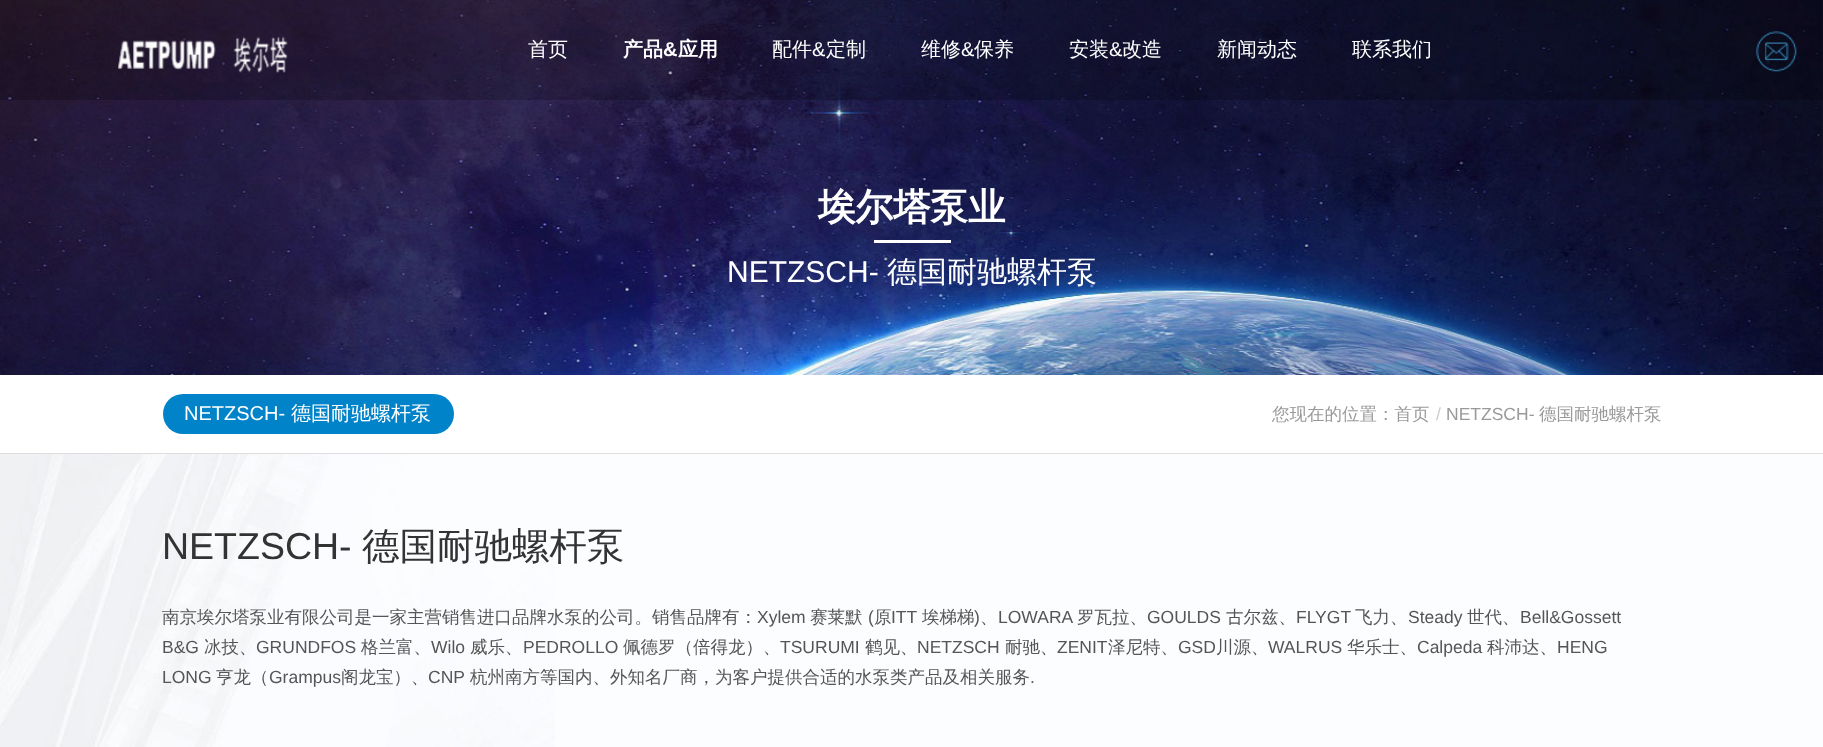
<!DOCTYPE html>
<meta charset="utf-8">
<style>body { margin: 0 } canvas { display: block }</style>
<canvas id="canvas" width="1823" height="747"></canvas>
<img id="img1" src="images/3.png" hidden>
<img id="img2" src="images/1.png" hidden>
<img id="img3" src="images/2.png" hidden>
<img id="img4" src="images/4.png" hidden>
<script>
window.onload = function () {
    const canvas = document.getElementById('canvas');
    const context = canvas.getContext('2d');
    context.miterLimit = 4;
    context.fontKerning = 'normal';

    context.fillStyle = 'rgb(255, 255, 255)';
    context.fillRect(0, 0, 1823, 747);
    context.drawImage(document.getElementById('img1'), 0, 0, 1823, 375);
    context.fillStyle = 'rgba(0, 0, 0, 0.2)';
    context.fillRect(0, 0, 1823, 100);
    context.drawImage(document.getElementById('img2'), 118, 36, 170, 37);
    context.drawImage(document.getElementById('img3'), 1756, 31, 41, 41);
    context.fillStyle = 'rgb(255, 255, 255)';
    context.fillRect(874, 240, 77, 3);
    context.fillStyle = 'rgb(252, 253, 255)';
    context.fillRect(555, 454, 1268, 293);
    context.drawImage(document.getElementById('img4'), 0, 454, 555, 293);
    context.fillStyle = 'rgb(222, 222, 222)';
    context.fillRect(0, 453, 1823, 1);
    context.fillStyle = 'rgb(0, 131, 201)';
    context.beginPath();
    context.roundRect(163, 394, 291, 40, 20);
    context.fill();
    context.font = '500 20px WenQuanYi Zen Hei';
    context.fillStyle = 'rgb(255, 255, 255)';
    context.fillText('首页', 528, 56);
    context.font = 'bold 20px WenQuanYi Zen Hei';
    context.fillText('产品', 623, 56);
    context.font = 'bold 20px Liberation Sans';
    context.fillText('&', 663, 56);
    context.font = 'bold 20px WenQuanYi Zen Hei';
    context.fillText('应用', 678, 56);
    context.font = '500 20px WenQuanYi Zen Hei';
    context.fillText('配件', 772, 56);
    context.font = '20px Liberation Sans';
    context.fillText('&', 812, 56);
    context.font = '500 20px WenQuanYi Zen Hei';
    context.fillText('定制', 826, 56);
    context.fillText('维修', 921, 56);
    context.font = '20px Liberation Sans';
    context.fillText('&', 961, 56);
    context.font = '500 20px WenQuanYi Zen Hei';
    context.fillText('保养', 974, 56);
    context.fillText('安装', 1069, 56);
    context.font = '20px Liberation Sans';
    context.fillText('&', 1109, 56);
    context.font = '500 20px WenQuanYi Zen Hei';
    context.fillText('改造', 1122, 56);
    context.fillText('新闻动态', 1217, 56);
    context.fillText('联系我们', 1352, 56);
    context.font = 'bold 37.5px WenQuanYi Zen Hei';
    context.fillText('埃尔塔泵业', 818, 220);
    context.font = '30px Liberation Sans';
    context.fillText('NETZSCH-', 727, 282);
    context.font = '500 30px WenQuanYi Zen Hei';
    context.fillText('德国耐驰螺杆泵', 887, 282);
    context.font = '20px Liberation Sans';
    context.fillText('NETZSCH-', 184, 420);
    context.font = '500 20px WenQuanYi Zen Hei';
    context.fillText('德国耐驰螺杆泵', 291, 420);
    context.font = '500 17.5px WenQuanYi Zen Hei';
    context.fillStyle = 'rgb(153, 153, 153)';
    context.fillText('您现在的位置：首页', 1272, 420);
    context.font = '17.5px Liberation Sans';
    context.fillStyle = 'rgb(204, 204, 204)';
    context.fillText('/', 1436, 420);
    context.fillStyle = 'rgb(153, 153, 153)';
    context.fillText('NETZSCH-', 1446, 420);
    context.font = '500 17.5px WenQuanYi Zen Hei';
    context.fillText('德国耐驰螺杆泵', 1539, 420);
    context.font = '37.5px Liberation Sans';
    context.fillStyle = 'rgb(51, 51, 51)';
    context.fillText('NETZSCH-', 162, 559);
    context.font = '500 37.5px WenQuanYi Zen Hei';
    context.fillText('德国耐驰螺杆泵', 362, 559);
    context.font = '500 17.5px WenQuanYi Zen Hei';
    context.fillStyle = 'rgb(85, 85, 85)';
    context.fillText('南京埃尔塔泵业有限公司是一家主营销售进口品牌水泵的公司。销售品牌有：', 162, 623);
    context.font = '17.5px Liberation Sans';
    context.fillText('Xylem', 757, 623);
    context.font = '500 17.5px WenQuanYi Zen Hei';
    context.fillText('赛莱默', 810, 623);
    context.font = '17.5px Liberation Sans';
    context.fillText('(', 868, 623);
    context.font = '500 17.5px WenQuanYi Zen Hei';
    context.fillText('原', 874, 623);
    context.font = '17.5px Liberation Sans';
    context.fillText('ITT', 891, 623);
    context.font = '500 17.5px WenQuanYi Zen Hei';
    context.fillText('埃梯梯', 922, 623);
    context.font = '17.5px Liberation Sans';
    context.fillText(')', 974, 623);
    context.font = '500 17.5px WenQuanYi Zen Hei';
    context.fillText('、', 980, 623);
    context.font = '17.5px Liberation Sans';
    context.fillText('LOWARA', 998, 623);
    context.font = '500 17.5px WenQuanYi Zen Hei';
    context.fillText('罗瓦拉、', 1077, 623);
    context.font = '17.5px Liberation Sans';
    context.fillText('GOULDS', 1147, 623);
    context.font = '500 17.5px WenQuanYi Zen Hei';
    context.fillText('古尔兹、', 1226, 623);
    context.font = '17.5px Liberation Sans';
    context.fillText('FLYGT', 1296, 623);
    context.font = '500 17.5px WenQuanYi Zen Hei';
    context.fillText('飞力、', 1355, 623);
    context.font = '17.5px Liberation Sans';
    context.fillText('Steady', 1408, 623);
    context.font = '500 17.5px WenQuanYi Zen Hei';
    context.fillText('世代、', 1467, 623);
    context.font = '17.5px Liberation Sans';
    context.fillText('Bell&Gossett', 1520, 623);
    context.fillText('B&G', 162, 653);
    context.font = '500 17.5px WenQuanYi Zen Hei';
    context.fillText('冰技、', 204, 653);
    context.font = '17.5px Liberation Sans';
    context.fillText('GRUNDFOS', 256, 653);
    context.font = '500 17.5px WenQuanYi Zen Hei';
    context.fillText('格兰富、', 361, 653);
    context.font = '17.5px Liberation Sans';
    context.fillText('Wilo', 431, 653);
    context.font = '500 17.5px WenQuanYi Zen Hei';
    context.fillText('威乐、', 470, 653);
    context.font = '17.5px Liberation Sans';
    context.fillText('PEDROLLO', 523, 653);
    context.font = '500 17.5px WenQuanYi Zen Hei';
    context.fillText('佩德罗（倍得龙）、', 623, 653);
    context.font = '17.5px Liberation Sans';
    context.fillText('TSURUMI', 780, 653);
    context.font = '500 17.5px WenQuanYi Zen Hei';
    context.fillText('鹤见、', 865, 653);
    context.font = '17.5px Liberation Sans';
    context.fillText('NETZSCH', 917, 653);
    context.font = '500 17.5px WenQuanYi Zen Hei';
    context.fillText('耐驰、', 1005, 653);
    context.font = '17.5px Liberation Sans';
    context.fillText('ZENIT', 1057, 653);
    context.font = '500 17.5px WenQuanYi Zen Hei';
    context.fillText('泽尼特、', 1108, 653);
    context.font = '17.5px Liberation Sans';
    context.fillText('GSD', 1178, 653);
    context.font = '500 17.5px WenQuanYi Zen Hei';
    context.fillText('川源、', 1216, 653);
    context.font = '17.5px Liberation Sans';
    context.fillText('WALRUS', 1268, 653);
    context.font = '500 17.5px WenQuanYi Zen Hei';
    context.fillText('华乐士、', 1347, 653);
    context.font = '17.5px Liberation Sans';
    context.fillText('Calpeda', 1417, 653);
    context.font = '500 17.5px WenQuanYi Zen Hei';
    context.fillText('科沛达、', 1487, 653);
    context.font = '17.5px Liberation Sans';
    context.fillText('HENG', 1557, 653);
    context.fillText('LONG', 162, 683);
    context.font = '500 17.5px WenQuanYi Zen Hei';
    context.fillText('亨龙（', 216, 683);
    context.font = '17.5px Liberation Sans';
    context.fillText('Grampus', 269, 683);
    context.font = '500 17.5px WenQuanYi Zen Hei';
    context.fillText('阁龙宝）、', 341, 683);
    context.font = '17.5px Liberation Sans';
    context.fillText('CNP', 428, 683);
    context.font = '500 17.5px WenQuanYi Zen Hei';
    context.fillText('杭州南方等国内、外知名厂商，为客户提供合适的水泵类产品及相关服务', 470, 683);
    context.font = '17.5px Liberation Sans';
    context.fillText('.', 1030, 683);
};
</script>
